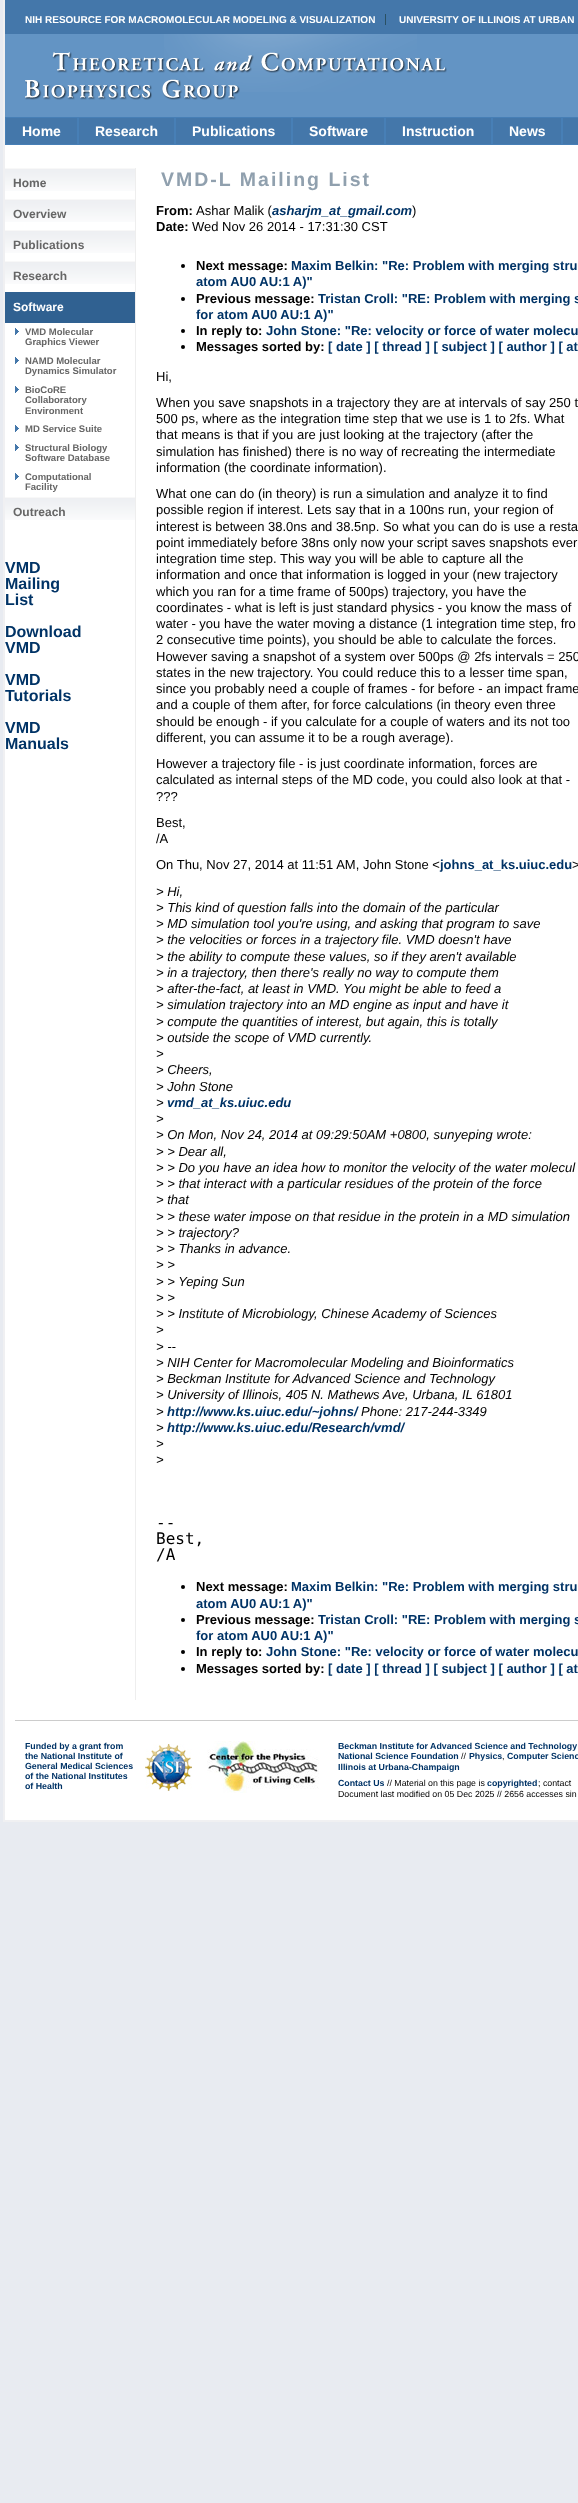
<!DOCTYPE html>
<meta charset="utf-8">
<style>body { margin: 0 } canvas { display: block }</style>
<canvas id="canvas" width="578" height="2503"></canvas>
<img id="img1" src="images/1.png" hidden>
<img id="img2" src="images/2.png" hidden>
<img id="img3" src="images/3.png" hidden>
<img id="img4" src="images/4.png" hidden>
<img id="img5" src="images/5.png" hidden>
<img id="img6" src="images/6.png" hidden>
<script>
window.onload = function () {
    const canvas = document.getElementById('canvas');
    const context = canvas.getContext('2d');
    context.miterLimit = 4;
    context.fontKerning = 'normal';

    context.fillStyle = 'rgb(232, 235, 241)';
    context.fillRect(0, 0, 578, 2503);
    context.fillStyle = 'rgb(255, 255, 255)';
    context.fillRect(5, 145, 573, 1675);
    context.fillStyle = 'rgb(240, 240, 242)';
    context.fillRect(3, 1820, 575, 2);
    context.fillRect(3, 0, 2, 1822);
    context.fillStyle = 'rgb(99, 148, 196)';
    context.fillRect(5, 34, 573, 83);
    context.drawImage(document.getElementById('img1'), 164, 34, 253, 58);
    context.fillStyle = 'rgb(68, 119, 170)';
    context.fillRect(5, 0, 573, 34);
    context.fillStyle = 'rgb(42, 80, 99)';
    context.fillRect(385, 14, 1, 11);
    context.drawImage(document.getElementById('img2'), 25, 52, 422, 48);
    context.fillStyle = 'rgb(68, 119, 170)';
    context.fillRect(6, 118, 572, 26);
    context.strokeStyle = 'rgb(71, 127, 182)';
    context.strokeRect(5.5, 117.5, 72, 27);
    context.strokeRect(78.5, 117.5, 96, 27);
    context.strokeRect(175.5, 117.5, 116, 27);
    context.strokeRect(292.5, 117.5, 92, 27);
    context.strokeRect(385.5, 117.5, 106, 27);
    context.strokeRect(492.5, 117.5, 69, 27);
    context.strokeRect(562.5, 117.5, 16, 27);
    context.drawImage(document.getElementById('img3'), 5, 168, 130, 23);
    context.drawImage(document.getElementById('img3'), 5, 199, 130, 23);
    context.drawImage(document.getElementById('img3'), 5, 230, 130, 23);
    context.drawImage(document.getElementById('img3'), 5, 261, 130, 23);
    context.fillStyle = 'rgb(48, 97, 145)';
    context.fillRect(5, 292, 130, 31);
    context.drawImage(document.getElementById('img4'), 15, 328, 4, 7);
    context.drawImage(document.getElementById('img4'), 15, 357, 4, 7);
    context.drawImage(document.getElementById('img4'), 15, 386, 4, 7);
    context.drawImage(document.getElementById('img4'), 15, 425, 4, 7);
    context.drawImage(document.getElementById('img4'), 15, 444, 4, 7);
    context.drawImage(document.getElementById('img4'), 15, 473, 4, 7);
    context.drawImage(document.getElementById('img3'), 5, 497, 130, 23);
    context.fillStyle = 'rgb(238, 238, 238)';
    context.fillRect(135, 168, 1, 1532);
    context.fillStyle = 'rgb(0, 0, 0)';
    context.beginPath();
    context.arc(183, 266, 2, 0, 2 * Math.PI);
    context.fill();
    context.beginPath();
    context.arc(183, 299, 2, 0, 2 * Math.PI);
    context.fill();
    context.beginPath();
    context.arc(183, 331, 2, 0, 2 * Math.PI);
    context.fill();
    context.beginPath();
    context.arc(183, 347, 2, 0, 2 * Math.PI);
    context.fill();
    context.beginPath();
    context.arc(183, 1587, 2, 0, 2 * Math.PI);
    context.fill();
    context.beginPath();
    context.arc(183, 1620, 2, 0, 2 * Math.PI);
    context.fill();
    context.beginPath();
    context.arc(183, 1652, 2, 0, 2 * Math.PI);
    context.fill();
    context.beginPath();
    context.arc(183, 1669, 2, 0, 2 * Math.PI);
    context.fill();
    context.fillStyle = 'rgb(204, 204, 204)';
    context.fillRect(15, 1720, 563, 1);
    context.drawImage(document.getElementById('img5'), 145, 1744, 47, 47);
    context.drawImage(document.getElementById('img6'), 207, 1741, 112, 52);
    context.font = 'bold 10px Liberation Sans';
    context.fillStyle = 'rgb(255, 255, 255)';
    context.fillText('NIH RESOURCE FOR MACROMOLECULAR MODELING & VISUALIZATION', 25, 23);
    context.fillText('UNIVERSITY OF ILLINOIS AT URBAN', 399, 23);
    context.font = 'bold 14px Liberation Sans';
    context.fillText('Home', 22, 136);
    context.fillText('Research', 95, 136);
    context.fillText('Publications', 192, 136);
    context.fillText('Software', 309, 136);
    context.fillText('Instruction', 402, 136);
    context.fillText('News', 509, 136);
    context.font = 'bold 12px Liberation Sans';
    context.fillStyle = 'rgb(102, 102, 102)';
    context.fillText('Home', 13, 187);
    context.fillText('Overview', 13, 218);
    context.fillText('Publications', 13, 249);
    context.fillText('Research', 13, 280);
    context.fillStyle = 'rgb(255, 255, 255)';
    context.fillText('Software', 13, 311);
    context.font = 'bold 9.5px Liberation Sans';
    context.fillStyle = 'rgb(102, 102, 102)';
    context.fillText('VMD Molecular', 25, 335);
    context.fillText('Graphics Viewer', 25, 345);
    context.fillText('NAMD Molecular', 25, 364);
    context.fillText('Dynamics Simulator', 25, 374);
    context.fillText('BioCoRE', 25, 393);
    context.fillText('Collaboratory', 25, 403);
    context.fillText('Environment', 25, 414);
    context.fillText('MD Service Suite', 25, 432);
    context.fillText('Structural Biology', 25, 451);
    context.fillText('Software Database', 25, 461);
    context.fillText('Computational', 25, 480);
    context.fillText('Facility', 25, 490);
    context.font = 'bold 12px Liberation Sans';
    context.fillText('Outreach', 13, 516);
    context.font = 'bold 16px Liberation Sans';
    context.fillStyle = 'rgb(0, 51, 102)';
    context.fillText('VMD', 5, 573);
    context.fillText('Mailing', 5, 589);
    context.fillText('List', 5, 605);
    context.fillText('Download', 5, 637);
    context.fillText('VMD', 5, 653);
    context.fillText('VMD', 5, 685);
    context.fillText('Tutorials', 5, 701);
    context.fillText('VMD', 5, 733);
    context.fillText('Manuals', 5, 749);
    context.letterSpacing = '2px';
    context.font = 'bold 19.5px Liberation Sans';
    context.fillStyle = 'rgb(144, 160, 174)';
    context.fillText('VMD-L Mailing List', 161, 186);
    context.letterSpacing = '0px';
    context.font = 'bold 13px Liberation Sans';
    context.fillStyle = 'rgb(0, 0, 0)';
    context.fillText('From:', 156, 215);
    context.font = '13px Liberation Sans';
    context.fillText('Ashar Malik (', 196, 215);
    context.font = 'italic bold 13px Liberation Sans';
    context.fillStyle = 'rgb(0, 51, 102)';
    context.fillText('asharjm_at_gmail.com', 272, 215);
    context.font = '13px Liberation Sans';
    context.fillStyle = 'rgb(0, 0, 0)';
    context.fillText(')', 412, 215);
    context.font = 'bold 13px Liberation Sans';
    context.fillText('Date:', 156, 231);
    context.font = '13px Liberation Sans';
    context.fillText('Wed Nov 26 2014 - 17:31:30 CST', 192, 231);
    context.font = 'bold 13px Liberation Sans';
    context.fillText('Next message:', 196, 270);
    context.fillStyle = 'rgb(0, 51, 102)';
    context.fillText('Maxim Belkin: "Re: Problem with merging stru', 291, 270);
    context.fillText('atom AU0 AU:1 A)"', 196, 286);
    context.fillStyle = 'rgb(0, 0, 0)';
    context.fillText('Previous message:', 196, 303);
    context.fillStyle = 'rgb(0, 51, 102)';
    context.fillText('Tristan Croll: "RE: Problem with merging s', 318, 303);
    context.fillText('for atom AU0 AU:1 A)"', 196, 319);
    context.fillStyle = 'rgb(0, 0, 0)';
    context.fillText('In reply to:', 196, 335);
    context.fillStyle = 'rgb(0, 51, 102)';
    context.fillText('John Stone: "Re: velocity or force of water molecu', 266, 335);
    context.fillStyle = 'rgb(0, 0, 0)';
    context.fillText('Messages sorted by:', 196, 351);
    context.fillStyle = 'rgb(0, 51, 102)';
    context.fillText('[ date ] [ thread ] [ subject ] [ author ] [ at', 328, 351);
    context.font = '13px Liberation Sans';
    context.fillStyle = 'rgb(0, 0, 0)';
    context.fillText('Hi,', 156, 381);
    context.fillText('When you save snapshots in a trajectory they are at intervals of say 250 t', 156, 407);
    context.fillText('500 ps, where as the integration time step that we use is 1 to 2fs. What', 156, 423);
    context.fillText('that means is that if you are just looking at the trajectory (after the', 156, 439);
    context.fillText('simulation has finished) there is no way of recreating the intermediate', 156, 456);
    context.fillText('information (the coordinate information).', 156, 472);
    context.fillText('What one can do (in theory) is run a simulation and analyze it to find', 156, 498);
    context.fillText('possible region if interest. Lets say that in a 100ns run, your region of', 156, 514);
    context.fillText('interest is between 38.0ns and 38.5np. So what you can do is use a resta', 156, 531);
    context.fillText('point immediately before 38ns only now your script saves snapshots ever', 156, 547);
    context.fillText('integration time step. This way you will be able to capture all the', 156, 563);
    context.fillText('information and once that information is logged in your (new trajectory', 156, 579);
    context.fillText('which you ran for a time frame of 500ps) trajectory, you have the', 156, 596);
    context.fillText('coordinates - what is left is just standard physics - you know the mass of', 156, 612);
    context.fillText('water - you have the water moving a distance (1 integration time step, fro', 156, 628);
    context.fillText('2 consecutive time points), you should be able to calculate the forces.', 156, 644);
    context.fillText('However saving a snapshot of a system over 500ps @ 2fs intervals = 250', 156, 661);
    context.fillText('states in the new trajectory. You could reduce this to a lesser time span,', 156, 677);
    context.fillText('since you probably need a couple of frames - for before - an impact frame', 156, 693);
    context.fillText('and a couple of them after, for force calculations (in theory even three', 156, 709);
    context.fillText('should be enough - if you calculate for a couple of waters and its not too', 156, 726);
    context.fillText('different, you can assume it to be a rough average).', 156, 742);
    context.fillText('However a trajectory file - is just coordinate information, forces are', 156, 768);
    context.fillText('calculated as internal steps of the MD code, you could also look at that -', 156, 784);
    context.fillText('???', 156, 801);
    context.fillText('Best,', 156, 827);
    context.fillText('/A', 156, 843);
    context.fillText('On Thu, Nov 27, 2014 at 11:51 AM, John Stone <', 156, 869);
    context.font = 'bold 13px Liberation Sans';
    context.fillStyle = 'rgb(0, 51, 102)';
    context.fillText('johns_at_ks.uiuc.edu', 440, 869);
    context.font = '13px Liberation Sans';
    context.fillStyle = 'rgb(0, 0, 0)';
    context.fillText('>', 572, 869);
    context.font = 'italic 13px Liberation Sans';
    context.fillText('> Hi,', 156, 896);
    context.fillText('> This kind of question falls into the domain of the particular', 156, 912);
    context.fillText('> MD simulation tool you\'re using, and asking that program to save', 156, 928);
    context.fillText('> the velocities or forces in a trajectory file. VMD doesn\'t have', 156, 944);
    context.fillText('> the ability to compute these values, so if they aren\'t available', 156, 961);
    context.fillText('> in a trajectory, then there\'s really no way to compute them', 156, 977);
    context.fillText('> after-the-fact, at least in VMD. You might be able to feed a', 156, 993);
    context.fillText('> simulation trajectory into an MD engine as input and have it', 156, 1009);
    context.fillText('> compute the quantities of interest, but again, this is totally', 156, 1026);
    context.fillText('> outside the scope of VMD currently.', 156, 1042);
    context.fillText('>', 156, 1058);
    context.fillText('> Cheers,', 156, 1074);
    context.fillText('> John Stone', 156, 1091);
    context.fillText('>', 156, 1107);
    context.font = 'italic bold 13px Liberation Sans';
    context.fillStyle = 'rgb(0, 51, 102)';
    context.fillText('vmd_at_ks.uiuc.edu', 167, 1107);
    context.font = 'italic 13px Liberation Sans';
    context.fillStyle = 'rgb(0, 0, 0)';
    context.fillText('>', 156, 1123);
    context.fillText('> On Mon, Nov 24, 2014 at 09:29:50AM +0800, sunyeping wrote:', 156, 1139);
    context.fillText('> > Dear all,', 156, 1156);
    context.fillText('> > Do you have an idea how to monitor the velocity of the water molecul', 156, 1172);
    context.fillText('> > that interact with a particular residues of the protein of the force', 156, 1188);
    context.fillText('> that', 156, 1204);
    context.fillText('> > these water impose on that residue in the protein in a MD simulation', 156, 1221);
    context.fillText('> > trajectory?', 156, 1237);
    context.fillText('> > Thanks in advance.', 156, 1253);
    context.fillText('> >', 156, 1269);
    context.fillText('> > Yeping Sun', 156, 1286);
    context.fillText('> >', 156, 1302);
    context.fillText('> > Institute of Microbiology, Chinese Academy of Sciences', 156, 1318);
    context.fillText('>', 156, 1334);
    context.fillText('> --', 156, 1351);
    context.fillText('> NIH Center for Macromolecular Modeling and Bioinformatics', 156, 1367);
    context.fillText('> Beckman Institute for Advanced Science and Technology', 156, 1383);
    context.fillText('> University of Illinois, 405 N. Mathews Ave, Urbana, IL 61801', 156, 1399);
    context.fillText('>', 156, 1416);
    context.font = 'italic bold 13px Liberation Sans';
    context.fillStyle = 'rgb(0, 51, 102)';
    context.fillText('http://www.ks.uiuc.edu/~johns/', 167, 1416);
    context.font = 'italic 13px Liberation Sans';
    context.fillStyle = 'rgb(0, 0, 0)';
    context.fillText('Phone: 217-244-3349', 361, 1416);
    context.fillText('>', 156, 1432);
    context.font = 'italic bold 13px Liberation Sans';
    context.fillStyle = 'rgb(0, 51, 102)';
    context.fillText('http://www.ks.uiuc.edu/Research/vmd/', 167, 1432);
    context.font = 'italic 13px Liberation Sans';
    context.fillStyle = 'rgb(0, 0, 0)';
    context.fillText('>', 156, 1448);
    context.fillText('>', 156, 1464);
    context.font = '16px DejaVu Sans Mono';
    context.fillText('--', 156, 1528);
    context.fillText('Best,', 156, 1544);
    context.fillText('/A', 156, 1560);
    context.font = 'bold 13px Liberation Sans';
    context.fillText('Next message:', 196, 1591);
    context.fillStyle = 'rgb(0, 51, 102)';
    context.fillText('Maxim Belkin: "Re: Problem with merging stru', 291, 1591);
    context.fillText('atom AU0 AU:1 A)"', 196, 1608);
    context.fillStyle = 'rgb(0, 0, 0)';
    context.fillText('Previous message:', 196, 1624);
    context.fillStyle = 'rgb(0, 51, 102)';
    context.fillText('Tristan Croll: "RE: Problem with merging s', 318, 1624);
    context.fillText('for atom AU0 AU:1 A)"', 196, 1640);
    context.fillStyle = 'rgb(0, 0, 0)';
    context.fillText('In reply to:', 196, 1656);
    context.fillStyle = 'rgb(0, 51, 102)';
    context.fillText('John Stone: "Re: velocity or force of water molecu', 266, 1656);
    context.fillStyle = 'rgb(0, 0, 0)';
    context.fillText('Messages sorted by:', 196, 1673);
    context.fillStyle = 'rgb(0, 51, 102)';
    context.fillText('[ date ] [ thread ] [ subject ] [ author ] [ at', 328, 1673);
    context.font = 'bold 8.8px Liberation Sans';
    context.fillText('Funded by a grant from', 25, 1749);
    context.fillText('the National Institute of', 25, 1759);
    context.fillText('General Medical Sciences', 25, 1769);
    context.fillText('of the National Institutes', 25, 1779);
    context.fillText('of Health', 25, 1789);
    context.fillText('Beckman Institute for Advanced Science and Technology', 338, 1749);
    context.fillText('National Science Foundation', 338, 1759);
    context.font = '8.8px Liberation Sans';
    context.fillStyle = 'rgb(0, 0, 0)';
    context.fillText('//', 461, 1759);
    context.font = 'bold 8.8px Liberation Sans';
    context.fillStyle = 'rgb(0, 51, 102)';
    context.fillText('Physics', 469, 1759);
    context.font = '8.8px Liberation Sans';
    context.fillStyle = 'rgb(0, 0, 0)';
    context.fillText(',', 502, 1759);
    context.font = 'bold 8.8px Liberation Sans';
    context.fillStyle = 'rgb(0, 51, 102)';
    context.fillText('Computer Scienc', 507, 1759);
    context.fillText('Illinois at Urbana-Champaign', 338, 1770);
    context.fillText('Contact Us', 338, 1786);
    context.font = '8.8px Liberation Sans';
    context.fillStyle = 'rgb(0, 0, 0)';
    context.fillText('// Material on this page is', 387, 1786);
    context.font = 'bold 8.8px Liberation Sans';
    context.fillStyle = 'rgb(0, 51, 102)';
    context.fillText('copyrighted', 487, 1786);
    context.font = '8.8px Liberation Sans';
    context.fillStyle = 'rgb(0, 0, 0)';
    context.fillText('; contact', 538, 1786);
    context.fillText('Document last modified on 05 Dec 2025 // 2656 accesses sin', 338, 1797);
};
</script>
